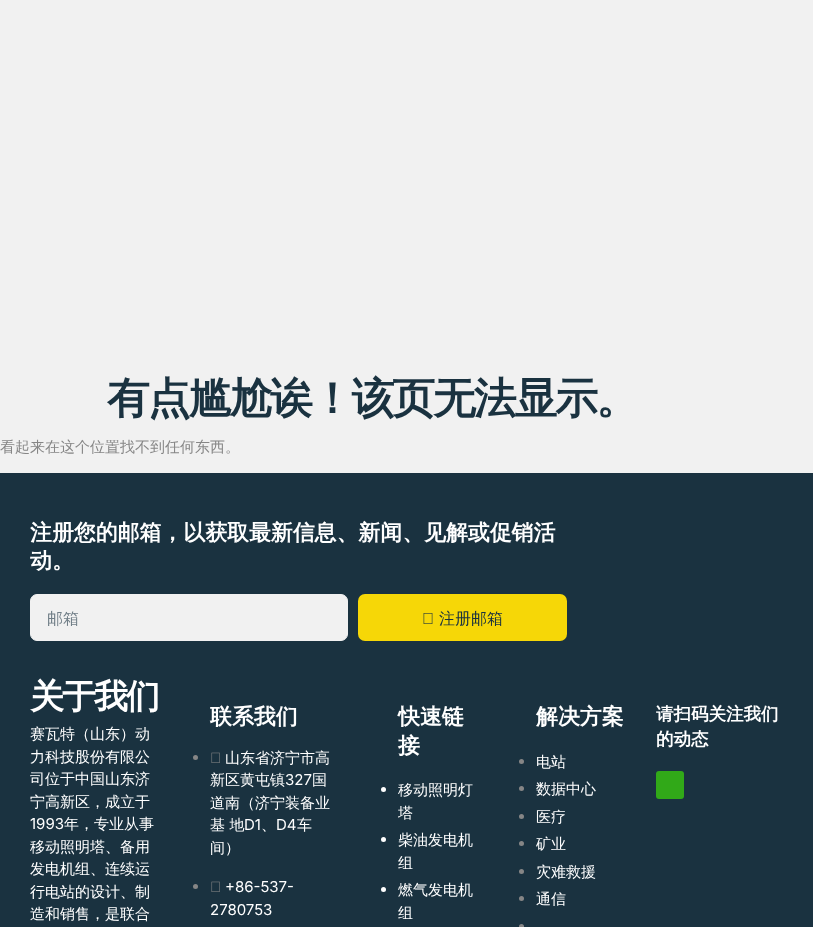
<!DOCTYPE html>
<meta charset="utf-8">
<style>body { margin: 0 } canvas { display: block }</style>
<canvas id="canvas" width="813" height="927"></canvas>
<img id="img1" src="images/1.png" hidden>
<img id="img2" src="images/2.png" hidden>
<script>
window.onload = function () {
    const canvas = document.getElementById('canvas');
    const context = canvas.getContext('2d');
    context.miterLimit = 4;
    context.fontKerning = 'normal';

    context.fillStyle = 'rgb(241, 241, 241)';
    context.fillRect(0, 0, 813, 927);
    context.fillStyle = 'rgb(26, 50, 64)';
    context.fillRect(0, 473, 813, 454);
    context.fillStyle = 'rgb(241, 241, 241)';
    context.beginPath();
    context.roundRect(30.5, 594.5, 317, 46, 6.5);
    context.fill();
    context.strokeStyle = 'rgb(241, 241, 241)';
    context.stroke();
    context.fillStyle = 'rgb(246, 215, 7)';
    context.beginPath();
    context.roundRect(358, 594, 209, 47, 7);
    context.fill();
    context.drawImage(document.getElementById('img1'), 423, 613, 10, 11);
    context.fillStyle = 'rgb(134, 134, 134)';
    context.beginPath();
    context.arc(195.5, 757.5, 2.5, 0, 2 * Math.PI);
    context.fill();
    context.drawImage(document.getElementById('img2'), 211, 752, 9, 11);
    context.beginPath();
    context.arc(195.5, 886.5, 2.5, 0, 2 * Math.PI);
    context.fill();
    context.drawImage(document.getElementById('img2'), 211, 881, 9, 11);
    context.fillStyle = 'rgb(255, 255, 255)';
    context.beginPath();
    context.arc(383.5, 789.5, 2.5, 0, 2 * Math.PI);
    context.fill();
    context.beginPath();
    context.arc(383.5, 839.5, 2.5, 0, 2 * Math.PI);
    context.fill();
    context.beginPath();
    context.arc(383.5, 889.5, 2.5, 0, 2 * Math.PI);
    context.fill();
    context.fillStyle = 'rgb(134, 134, 134)';
    context.beginPath();
    context.arc(521.5, 761.5, 2.5, 0, 2 * Math.PI);
    context.fill();
    context.beginPath();
    context.arc(521.5, 788.5, 2.5, 0, 2 * Math.PI);
    context.fill();
    context.beginPath();
    context.arc(521.5, 816.5, 2.5, 0, 2 * Math.PI);
    context.fill();
    context.beginPath();
    context.arc(521.5, 843.5, 2.5, 0, 2 * Math.PI);
    context.fill();
    context.beginPath();
    context.arc(521.5, 871.5, 2.5, 0, 2 * Math.PI);
    context.fill();
    context.beginPath();
    context.arc(521.5, 898.5, 2.5, 0, 2 * Math.PI);
    context.fill();
    context.beginPath();
    context.arc(521.5, 926.5, 2.5, 0, 2 * Math.PI);
    context.fill();
    context.fillStyle = 'rgb(49, 169, 24)';
    context.beginPath();
    context.roundRect(656, 771, 28, 28, 3);
    context.fill();
    context.letterSpacing = '-2px';
    context.font = 'bold 42.75px WenQuanYi Zen Hei';
    context.fillStyle = 'rgb(26, 50, 64)';
    context.fillText('有点尴尬诶！该页无法显示。', 107, 413);
    context.letterSpacing = '0px';
    context.font = '500 15px WenQuanYi Zen Hei';
    context.fillStyle = 'rgb(134, 134, 134)';
    context.fillText('看起来在这个位置找不到任何东西。', 0, 452);
    context.font = 'bold 21.9px WenQuanYi Zen Hei';
    context.fillStyle = 'rgb(255, 255, 255)';
    context.fillText('注册您的邮箱，以获取最新信息、新闻、见解或促销活', 30, 540);
    context.fillText('动。', 30, 568);
    context.font = '500 16px WenQuanYi Zen Hei';
    context.fillStyle = 'rgb(112, 126, 135)';
    context.fillText('邮箱', 47, 624);
    context.fillStyle = 'rgb(26, 50, 64)';
    context.fillText('注册邮箱', 439, 624);
    context.letterSpacing = '-2px';
    context.font = 'bold 34px WenQuanYi Zen Hei';
    context.fillStyle = 'rgb(255, 255, 255)';
    context.fillText('关于我们', 30, 708);
    context.letterSpacing = '0px';
    context.font = '500 15px WenQuanYi Zen Hei';
    context.fillText('赛瓦特（山东）动', 30, 739);
    context.fillText('力科技股份有限公', 30, 762);
    context.fillText('司位于中国山东济', 30, 784);
    context.fillText('宁高新区，成立于', 30, 807);
    context.font = '15px Inter';
    context.fillText('1993', 30, 829);
    context.font = '500 15px WenQuanYi Zen Hei';
    context.fillText('年，专业从事', 64, 829);
    context.fillText('移动照明塔、备用', 30, 852);
    context.fillText('发电机组、连续运', 30, 874);
    context.fillText('行电站的设计、制', 30, 897);
    context.fillText('造和销售，是联合', 30, 919);
    context.font = 'bold 21.9px WenQuanYi Zen Hei';
    context.fillText('联系我们', 210, 724);
    context.font = '500 15px WenQuanYi Zen Hei';
    context.fillText('山东省济宁市高', 225, 763);
    context.fillText('新区黄屯镇', 210, 785);
    context.font = '15px Inter';
    context.fillText('327', 285, 785);
    context.font = '500 15px WenQuanYi Zen Hei';
    context.fillText('国', 312, 785);
    context.fillText('道南（济宁装备业', 210, 808);
    context.fillText('基 地', 210, 830);
    context.font = '15px Inter';
    context.fillText('D1', 244, 830);
    context.font = '500 15px WenQuanYi Zen Hei';
    context.fillText('、', 261, 830);
    context.font = '15px Inter';
    context.fillText('D4', 276, 830);
    context.font = '500 15px WenQuanYi Zen Hei';
    context.fillText('车', 297, 830);
    context.fillText('间）', 210, 853);
    context.font = '15px Inter';
    context.fillText('+86-537-', 225, 892);
    context.fillText('2780753', 210, 915);
    context.font = 'bold 21.9px WenQuanYi Zen Hei';
    context.fillText('快速链', 398, 724);
    context.fillText('接', 398, 753);
    context.font = '500 15px WenQuanYi Zen Hei';
    context.fillText('移动照明灯', 398, 795);
    context.fillText('塔', 398, 818);
    context.fillText('柴油发电机', 398, 845);
    context.fillText('组', 398, 868);
    context.fillText('燃气发电机', 398, 895);
    context.fillText('组', 398, 918);
    context.font = 'bold 21.9px WenQuanYi Zen Hei';
    context.fillText('解决方案', 536, 724);
    context.font = '500 15px WenQuanYi Zen Hei';
    context.fillText('电站', 536, 767);
    context.fillText('数据中心', 536, 794);
    context.fillText('医疗', 536, 822);
    context.fillText('矿业', 536, 849);
    context.fillText('灾难救援', 536, 877);
    context.fillText('通信', 536, 904);
    context.font = 'bold 17.5px WenQuanYi Zen Hei';
    context.fillText('请扫码关注我们', 656, 720);
    context.fillText('的动态', 656, 745);
};
</script>
